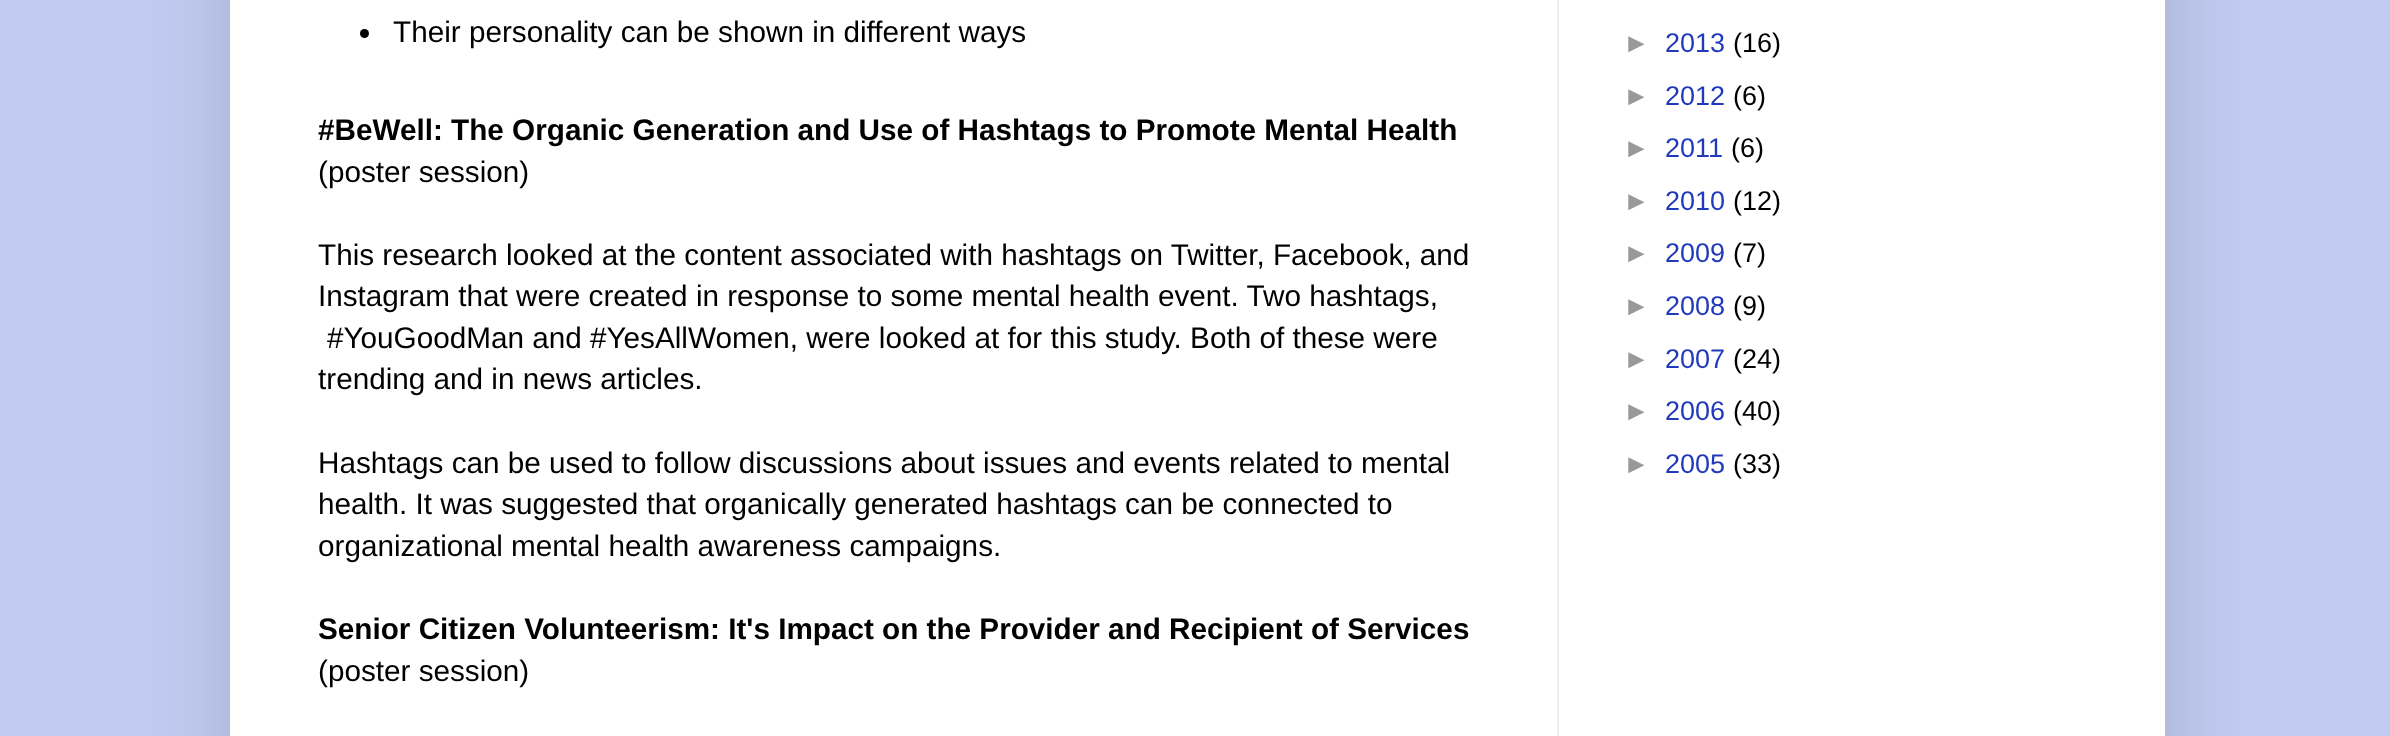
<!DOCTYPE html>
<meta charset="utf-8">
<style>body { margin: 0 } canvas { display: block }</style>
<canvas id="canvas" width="2390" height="736"></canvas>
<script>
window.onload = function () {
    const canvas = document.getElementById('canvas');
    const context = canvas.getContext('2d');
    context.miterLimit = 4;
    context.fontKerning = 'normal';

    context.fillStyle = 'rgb(194, 204, 242)';
    context.fillRect(0, 0, 2390, 736);
    context.fillStyle = 'rgba(0, 0, 0, 0.15)';
    context.filter = 'blur(45px)';
    context.beginPath();
    context.rect(230, -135, 1935, 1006);
    context.fill();
    context.filter = 'none';
    context.fillStyle = 'rgb(255, 255, 255)';
    context.fillRect(230, 0, 1935, 736);
    context.fillStyle = 'rgb(238, 238, 238)';
    context.fillRect(1557, 0, 2, 736);
    context.fillStyle = 'rgb(0, 0, 0)';
    context.beginPath();
    context.arc(364.5, 33.5, 4.5, 0, 2 * Math.PI);
    context.fill();
    context.font = '29.7px Liberation Sans';
    context.fillText('Their personality can be shown in different ways', 393, 42);
    context.font = 'bold 29.7px Liberation Sans';
    context.fillText('#BeWell: The Organic Generation and Use of Hashtags to Promote Mental Health', 318, 140);
    context.font = '29.7px Liberation Sans';
    context.fillText('(poster session)', 318, 182);
    context.fillText('This research looked at the content associated with hashtags on Twitter, Facebook, and', 318, 265);
    context.fillText('Instagram that were created in response to some mental health event. Two hashtags,', 318, 306);
    context.fillText('#YouGoodMan and #YesAllWomen, were looked at for this study. Both of these were', 327, 348);
    context.fillText('trending and in news articles.', 318, 389);
    context.fillText('Hashtags can be used to follow discussions about issues and events related to mental', 318, 473);
    context.fillText('health. It was suggested that organically generated hashtags can be connected to', 318, 514);
    context.fillText('organizational mental health awareness campaigns.', 318, 556);
    context.font = 'bold 29.7px Liberation Sans';
    context.fillText('Senior Citizen Volunteerism: It\'s Impact on the Provider and Recipient of Services', 318, 639);
    context.font = '29.7px Liberation Sans';
    context.fillText('(poster session)', 318, 681);
    context.font = '27px Liberation Sans';
    context.fillStyle = 'rgb(153, 153, 153)';
    context.fillText('►', 1623, 52);
    context.fillStyle = 'rgb(33, 58, 187)';
    context.fillText('2013', 1665, 52);
    context.fillStyle = 'rgb(0, 0, 0)';
    context.fillText('(16)', 1733, 52);
    context.fillStyle = 'rgb(153, 153, 153)';
    context.fillText('►', 1623, 105);
    context.fillStyle = 'rgb(33, 58, 187)';
    context.fillText('2012', 1665, 105);
    context.fillStyle = 'rgb(0, 0, 0)';
    context.fillText('(6)', 1733, 105);
    context.fillStyle = 'rgb(153, 153, 153)';
    context.fillText('►', 1623, 157);
    context.fillStyle = 'rgb(33, 58, 187)';
    context.fillText('2011', 1665, 157);
    context.fillStyle = 'rgb(0, 0, 0)';
    context.fillText('(6)', 1731, 157);
    context.fillStyle = 'rgb(153, 153, 153)';
    context.fillText('►', 1623, 210);
    context.fillStyle = 'rgb(33, 58, 187)';
    context.fillText('2010', 1665, 210);
    context.fillStyle = 'rgb(0, 0, 0)';
    context.fillText('(12)', 1733, 210);
    context.fillStyle = 'rgb(153, 153, 153)';
    context.fillText('►', 1623, 262);
    context.fillStyle = 'rgb(33, 58, 187)';
    context.fillText('2009', 1665, 262);
    context.fillStyle = 'rgb(0, 0, 0)';
    context.fillText('(7)', 1733, 262);
    context.fillStyle = 'rgb(153, 153, 153)';
    context.fillText('►', 1623, 315);
    context.fillStyle = 'rgb(33, 58, 187)';
    context.fillText('2008', 1665, 315);
    context.fillStyle = 'rgb(0, 0, 0)';
    context.fillText('(9)', 1733, 315);
    context.fillStyle = 'rgb(153, 153, 153)';
    context.fillText('►', 1623, 368);
    context.fillStyle = 'rgb(33, 58, 187)';
    context.fillText('2007', 1665, 368);
    context.fillStyle = 'rgb(0, 0, 0)';
    context.fillText('(24)', 1733, 368);
    context.fillStyle = 'rgb(153, 153, 153)';
    context.fillText('►', 1623, 420);
    context.fillStyle = 'rgb(33, 58, 187)';
    context.fillText('2006', 1665, 420);
    context.fillStyle = 'rgb(0, 0, 0)';
    context.fillText('(40)', 1733, 420);
    context.fillStyle = 'rgb(153, 153, 153)';
    context.fillText('►', 1623, 473);
    context.fillStyle = 'rgb(33, 58, 187)';
    context.fillText('2005', 1665, 473);
    context.fillStyle = 'rgb(0, 0, 0)';
    context.fillText('(33)', 1733, 473);
};
</script>
